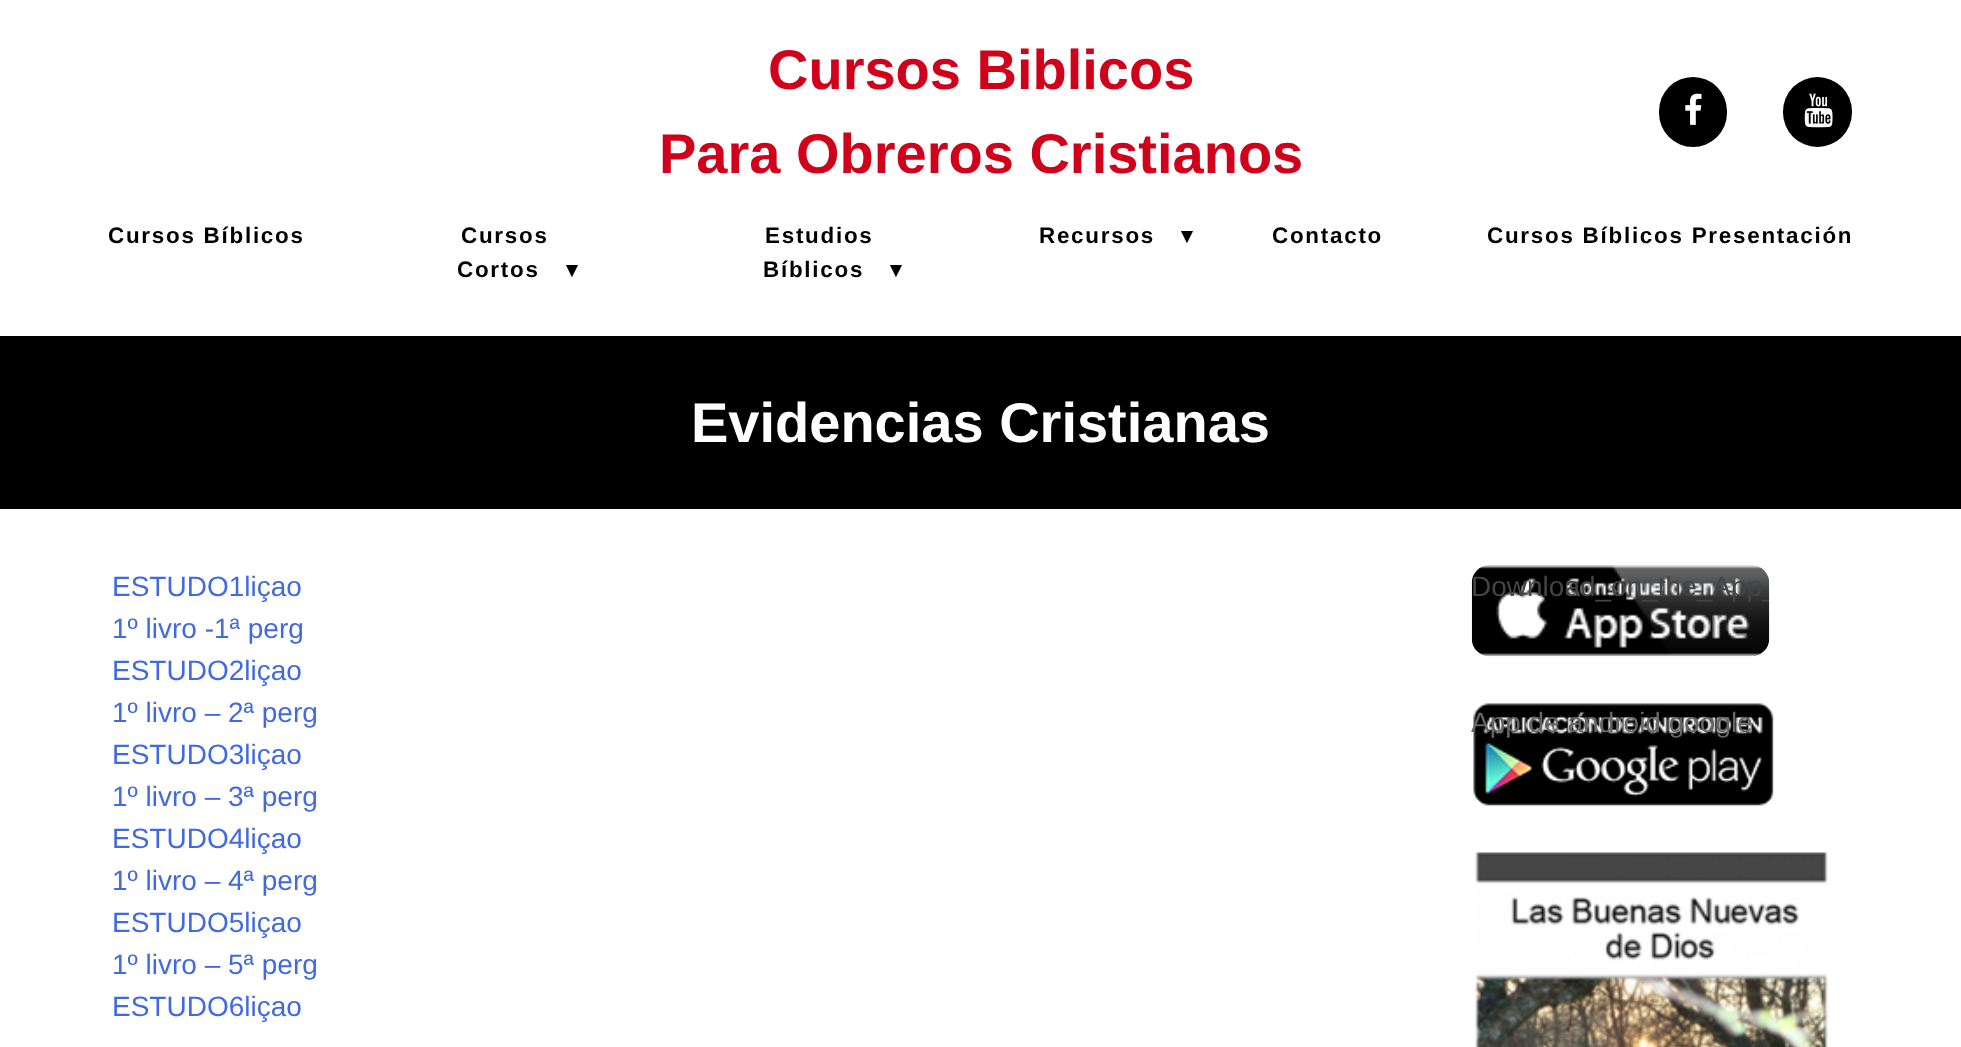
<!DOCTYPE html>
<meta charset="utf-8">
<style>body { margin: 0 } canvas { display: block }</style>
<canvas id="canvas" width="1961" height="1047"></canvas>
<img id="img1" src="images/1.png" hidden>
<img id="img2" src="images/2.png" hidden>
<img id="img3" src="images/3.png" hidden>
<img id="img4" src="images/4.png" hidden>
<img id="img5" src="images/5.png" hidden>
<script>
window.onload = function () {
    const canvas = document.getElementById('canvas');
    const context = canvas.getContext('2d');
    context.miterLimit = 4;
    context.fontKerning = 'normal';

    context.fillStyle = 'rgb(255, 255, 255)';
    context.fillRect(0, 0, 1961, 1047);
    context.fillStyle = 'rgb(0, 0, 0)';
    context.beginPath();
    context.roundRect(1659, 77, 68, 70, 34);
    context.fill();
    context.drawImage(document.getElementById('img1'), 1685, 93, 17, 32);
    context.beginPath();
    context.roundRect(1783, 77, 69, 70, 34.5);
    context.fill();
    context.drawImage(document.getElementById('img2'), 1804, 93, 29, 35);
    context.fillRect(0, 336, 1961, 173);
    context.drawImage(document.getElementById('img3'), 1471, 565, 299, 92);
    context.drawImage(document.getElementById('img4'), 1473, 703, 301, 103);
    context.drawImage(document.getElementById('img5'), 1475, 852, 353, 195);
    context.font = 'bold 56px Liberation Sans';
    context.fillStyle = 'rgb(208, 2, 27)';
    context.fillText('Cursos Biblicos', 768, 89);
    context.fillText('Para Obreros Cristianos', 659, 173);
    context.letterSpacing = '1.75px';
    context.font = 'bold 22.4px Liberation Sans';
    context.fillStyle = 'rgb(0, 0, 0)';
    context.fillText('Cursos Bíblicos', 108, 243);
    context.fillText('Cursos', 461, 243);
    context.fillText('Cortos', 457, 277);
    context.font = 'bold 22.4px DejaVu Sans';
    context.fillText('▾', 566, 277);
    context.font = 'bold 22.4px Liberation Sans';
    context.fillText('Estudios', 765, 243);
    context.fillText('Bíblicos', 763, 277);
    context.font = 'bold 22.4px DejaVu Sans';
    context.fillText('▾', 890, 277);
    context.font = 'bold 22.4px Liberation Sans';
    context.fillText('Recursos', 1039, 243);
    context.font = 'bold 22.4px DejaVu Sans';
    context.fillText('▾', 1181, 243);
    context.font = 'bold 22.4px Liberation Sans';
    context.fillText('Contacto', 1272, 243);
    context.fillText('Cursos Bíblicos Presentación', 1487, 243);
    context.letterSpacing = '0px';
    context.font = 'bold 56px Liberation Sans';
    context.fillStyle = 'rgb(255, 255, 255)';
    context.fillText('Evidencias Cristianas', 691, 442);
    context.font = '28px Liberation Sans';
    context.fillStyle = 'rgb(65, 105, 225)';
    context.fillText('ESTUDO1liçao', 112, 596);
    context.fillText('1º livro -1ª perg', 112, 638);
    context.fillText('ESTUDO2liçao', 112, 680);
    context.fillText('1º livro – 2ª perg', 112, 722);
    context.fillText('ESTUDO3liçao', 112, 764);
    context.fillText('1º livro – 3ª perg', 112, 806);
    context.fillText('ESTUDO4liçao', 112, 848);
    context.fillText('1º livro – 4ª perg', 112, 890);
    context.fillText('ESTUDO5liçao', 112, 932);
    context.fillText('1º livro – 5ª perg', 112, 974);
    context.fillText('ESTUDO6liçao', 112, 1016);
    context.save();
    context.beginPath();
    context.roundRect(1472, 565, 297, 91, 18);
    context.clip();
    context.fillStyle = 'rgb(68, 68, 68)';
    context.fillText('Download_on_the_App_', 1471, 596);
    context.restore();
    context.fillStyle = 'rgb(102, 102, 102)';
    context.fillText('App de android google', 1471, 732);
};
</script>
